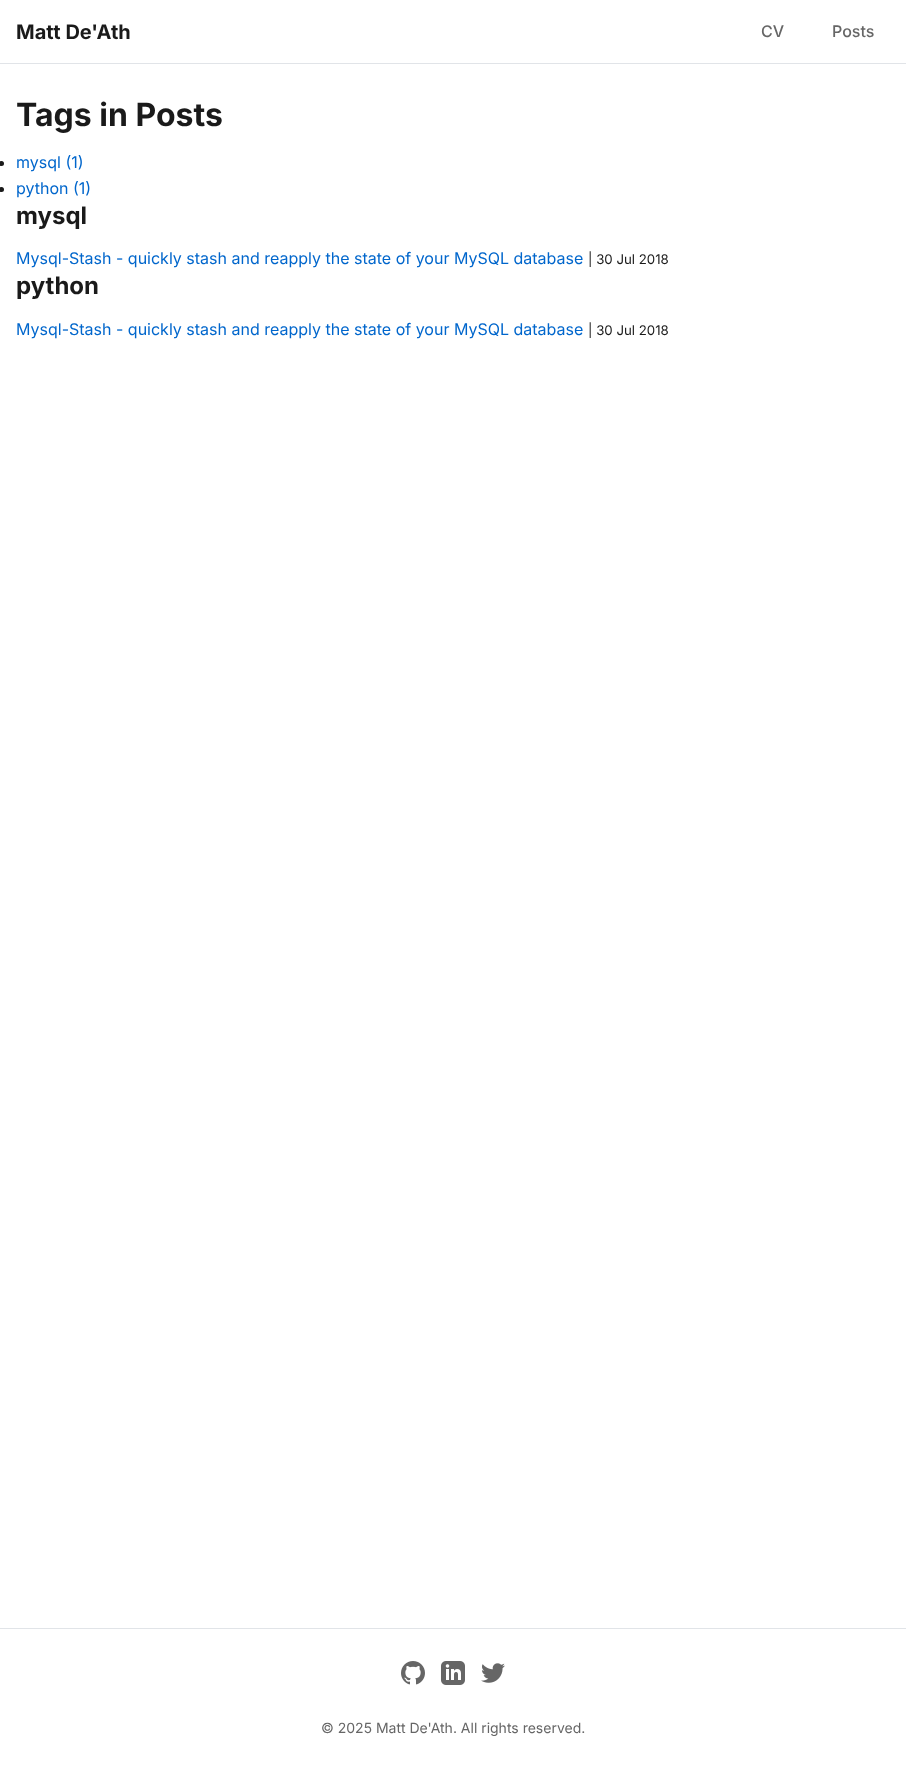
<!DOCTYPE html>
<meta charset="utf-8">
<style>body { margin: 0 } canvas { display: block }</style>
<canvas id="canvas" width="906" height="1787"></canvas>
<img id="img1" src="images/1.png" hidden>
<img id="img2" src="images/2.png" hidden>
<img id="img3" src="images/3.png" hidden>
<script>
window.onload = function () {
    const canvas = document.getElementById('canvas');
    const context = canvas.getContext('2d');
    context.miterLimit = 4;
    context.fontKerning = 'normal';

    context.fillStyle = 'rgb(255, 255, 255)';
    context.fillRect(0, 0, 906, 1787);
    context.fillStyle = 'rgb(225, 228, 232)';
    context.fillRect(0, 63, 906, 1);
    context.fillStyle = 'rgb(26, 26, 26)';
    context.beginPath();
    context.arc(1.5, 163.5, 2.5, 0, 2 * Math.PI);
    context.fill();
    context.beginPath();
    context.arc(1.5, 189.5, 2.5, 0, 2 * Math.PI);
    context.fill();
    context.fillStyle = 'rgb(225, 228, 232)';
    context.fillRect(0, 1628, 906, 1);
    context.drawImage(document.getElementById('img1'), 401, 1661, 24, 24);
    context.drawImage(document.getElementById('img2'), 441, 1661, 24, 24);
    context.drawImage(document.getElementById('img3'), 481, 1663, 24, 20);
    context.font = 'bold 20px Inter';
    context.fillStyle = 'rgb(26, 26, 26)';
    context.fillText('Matt De\'Ath', 16, 39);
    context.font = '500 16px Inter';
    context.fillStyle = 'rgb(102, 102, 102)';
    context.fillText('CV', 761, 37);
    context.fillText('Posts', 832, 37);
    context.font = 'bold 32px Inter';
    context.fillStyle = 'rgb(26, 26, 26)';
    context.fillText('Tags in Posts', 16, 126);
    context.font = '16px Inter';
    context.fillStyle = 'rgb(0, 102, 204)';
    context.fillText('mysql (1)', 16, 168);
    context.fillText('python (1)', 16, 194);
    context.font = 'bold 24px Inter';
    context.fillStyle = 'rgb(26, 26, 26)';
    context.fillText('mysql', 16, 224);
    context.font = '16px Inter';
    context.fillStyle = 'rgb(0, 102, 204)';
    context.fillText('Mysql-Stash - quickly stash and reapply the state of your MySQL database', 16, 264);
    context.font = '13.25px Inter';
    context.fillStyle = 'rgb(26, 26, 26)';
    context.fillText('| 30 Jul 2018', 588, 264);
    context.font = 'bold 24px Inter';
    context.fillText('python', 16, 294);
    context.font = '16px Inter';
    context.fillStyle = 'rgb(0, 102, 204)';
    context.fillText('Mysql-Stash - quickly stash and reapply the state of your MySQL database', 16, 335);
    context.font = '13.25px Inter';
    context.fillStyle = 'rgb(26, 26, 26)';
    context.fillText('| 30 Jul 2018', 588, 335);
    context.font = '14px Inter';
    context.fillStyle = 'rgb(102, 102, 102)';
    context.fillText('© 2025 Matt De\'Ath. All rights reserved.', 321, 1733);
};
</script>
